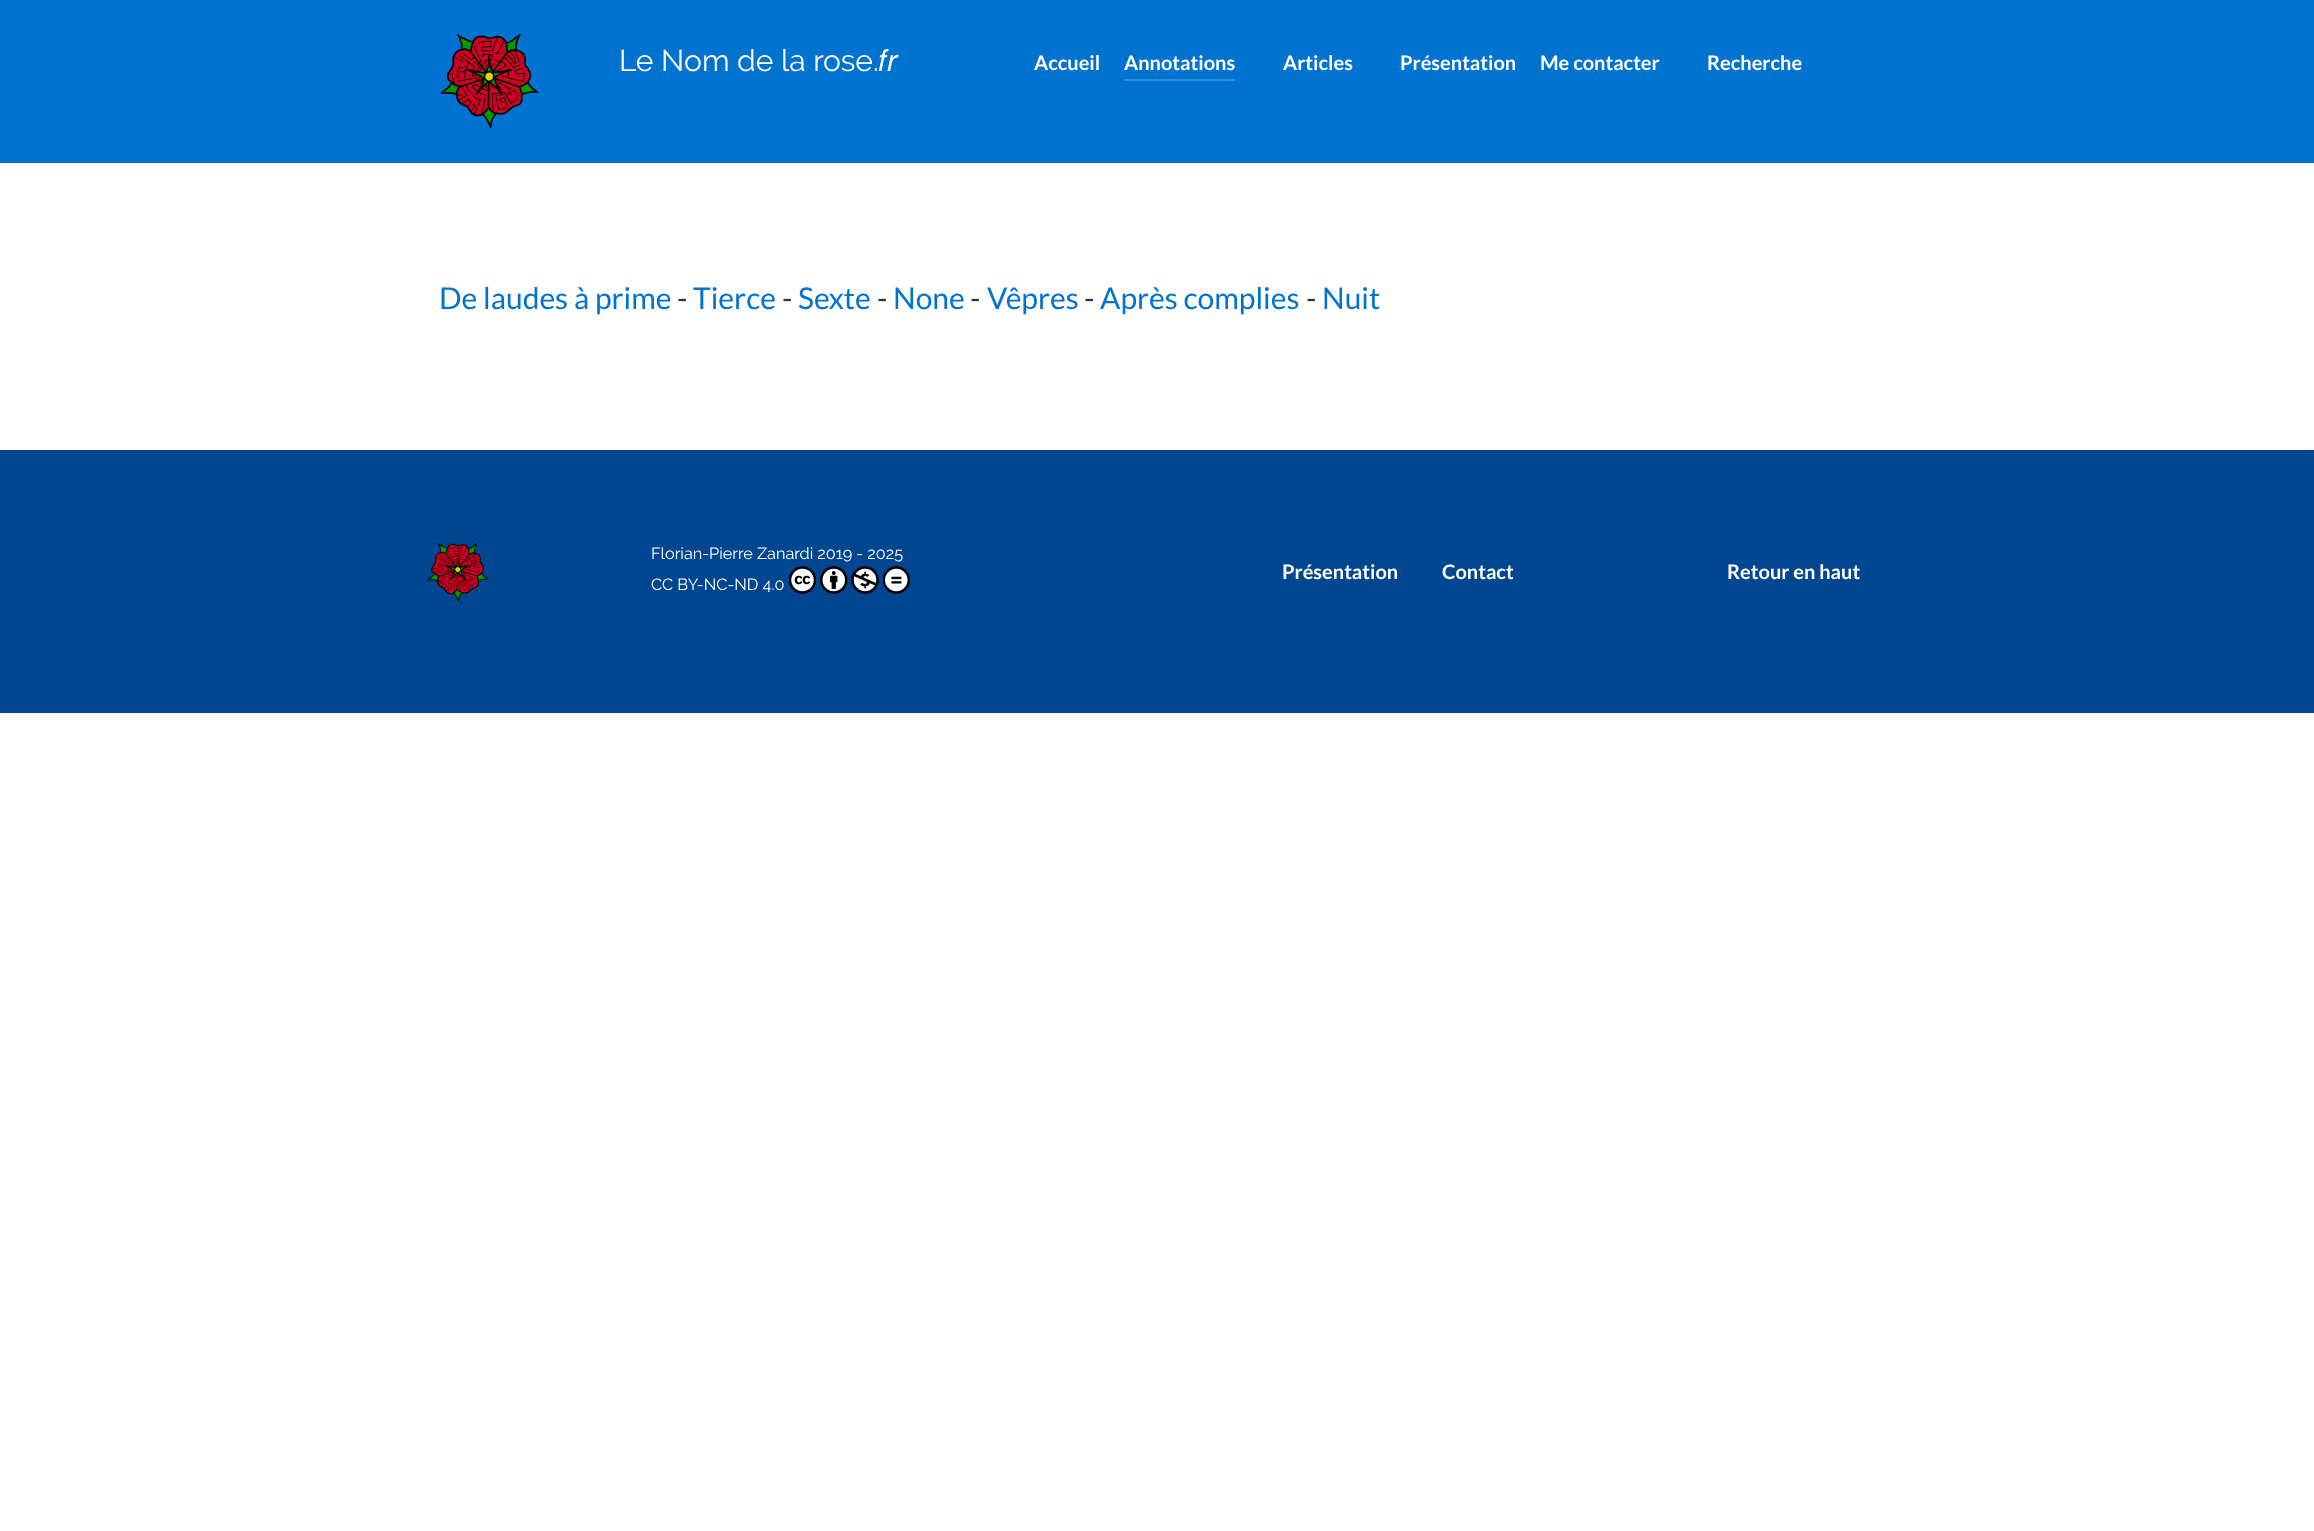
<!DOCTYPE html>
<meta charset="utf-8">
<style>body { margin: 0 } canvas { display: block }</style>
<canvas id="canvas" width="2314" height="1531"></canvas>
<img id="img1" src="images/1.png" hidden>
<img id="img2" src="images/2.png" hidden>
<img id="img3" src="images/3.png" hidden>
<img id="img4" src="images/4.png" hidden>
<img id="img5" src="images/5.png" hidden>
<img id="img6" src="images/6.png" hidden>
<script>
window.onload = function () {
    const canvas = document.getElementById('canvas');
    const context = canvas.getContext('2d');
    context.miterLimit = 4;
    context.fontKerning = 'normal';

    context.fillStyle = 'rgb(255, 255, 255)';
    context.fillRect(0, 0, 2314, 1531);
    context.fillStyle = 'rgb(0, 114, 207)';
    context.fillRect(0, 0, 2314, 163);
    context.drawImage(document.getElementById('img1'), 440, 34, 99, 94);
    context.fillStyle = 'rgb(51, 142, 217)';
    context.fillRect(1124, 79, 111, 2);
    context.fillStyle = 'rgb(0, 70, 145)';
    context.fillRect(0, 450, 2314, 263);
    context.drawImage(document.getElementById('img2'), 427, 542, 62, 60);
    context.drawImage(document.getElementById('img3'), 789, 566, 27, 28);
    context.drawImage(document.getElementById('img4'), 820, 566, 28, 28);
    context.drawImage(document.getElementById('img5'), 851, 566, 28, 28);
    context.drawImage(document.getElementById('img6'), 883, 566, 27, 28);
    context.font = '30px Raleway';
    context.fillStyle = 'rgb(255, 255, 255)';
    context.fillText('Le Nom de la rose.', 619, 71);
    context.font = '30px FreeSans';
    context.fillText('𝑓𝑟', 878, 71);
    context.font = 'bold 20px Lato';
    context.fillText('Accueil', 1034, 70);
    context.fillText('Annotations', 1124, 70);
    context.fillText('Articles', 1283, 70);
    context.fillText('Présentation', 1400, 70);
    context.fillText('Me contacter', 1540, 70);
    context.fillText('Recherche', 1707, 70);
    context.font = '30px Lato';
    context.fillStyle = 'rgb(0, 114, 207)';
    context.fillText('De laudes à prime', 439, 309);
    context.fillStyle = 'rgb(42, 54, 59)';
    context.fillText('-', 677, 309);
    context.fillStyle = 'rgb(0, 114, 207)';
    context.fillText('Tierce', 693, 309);
    context.fillStyle = 'rgb(42, 54, 59)';
    context.fillText('-', 782, 309);
    context.fillStyle = 'rgb(0, 114, 207)';
    context.fillText('Sexte', 798, 309);
    context.fillStyle = 'rgb(42, 54, 59)';
    context.fillText('-', 877, 309);
    context.fillStyle = 'rgb(0, 114, 207)';
    context.fillText('None', 893, 309);
    context.fillStyle = 'rgb(42, 54, 59)';
    context.fillText('-', 970, 309);
    context.fillStyle = 'rgb(0, 114, 207)';
    context.fillText('Vêpres', 987, 309);
    context.fillStyle = 'rgb(42, 54, 59)';
    context.fillText('-', 1084, 309);
    context.fillStyle = 'rgb(0, 114, 207)';
    context.fillText('Après complies', 1100, 309);
    context.fillStyle = 'rgb(42, 54, 59)';
    context.fillText('-', 1306, 309);
    context.fillStyle = 'rgb(0, 114, 207)';
    context.fillText('Nuit', 1322, 309);
    context.font = '16.25px Raleway';
    context.fillStyle = 'rgb(255, 255, 255)';
    context.fillText('Florian-Pierre Zanardi 2019 - 2025', 651, 559);
    context.fillText('CC BY-NC-ND 4.0', 651, 590);
    context.font = 'bold 20px Lato';
    context.fillText('Présentation', 1282, 579);
    context.fillText('Contact', 1442, 579);
    context.fillText('Retour en haut', 1727, 579);
};
</script>
